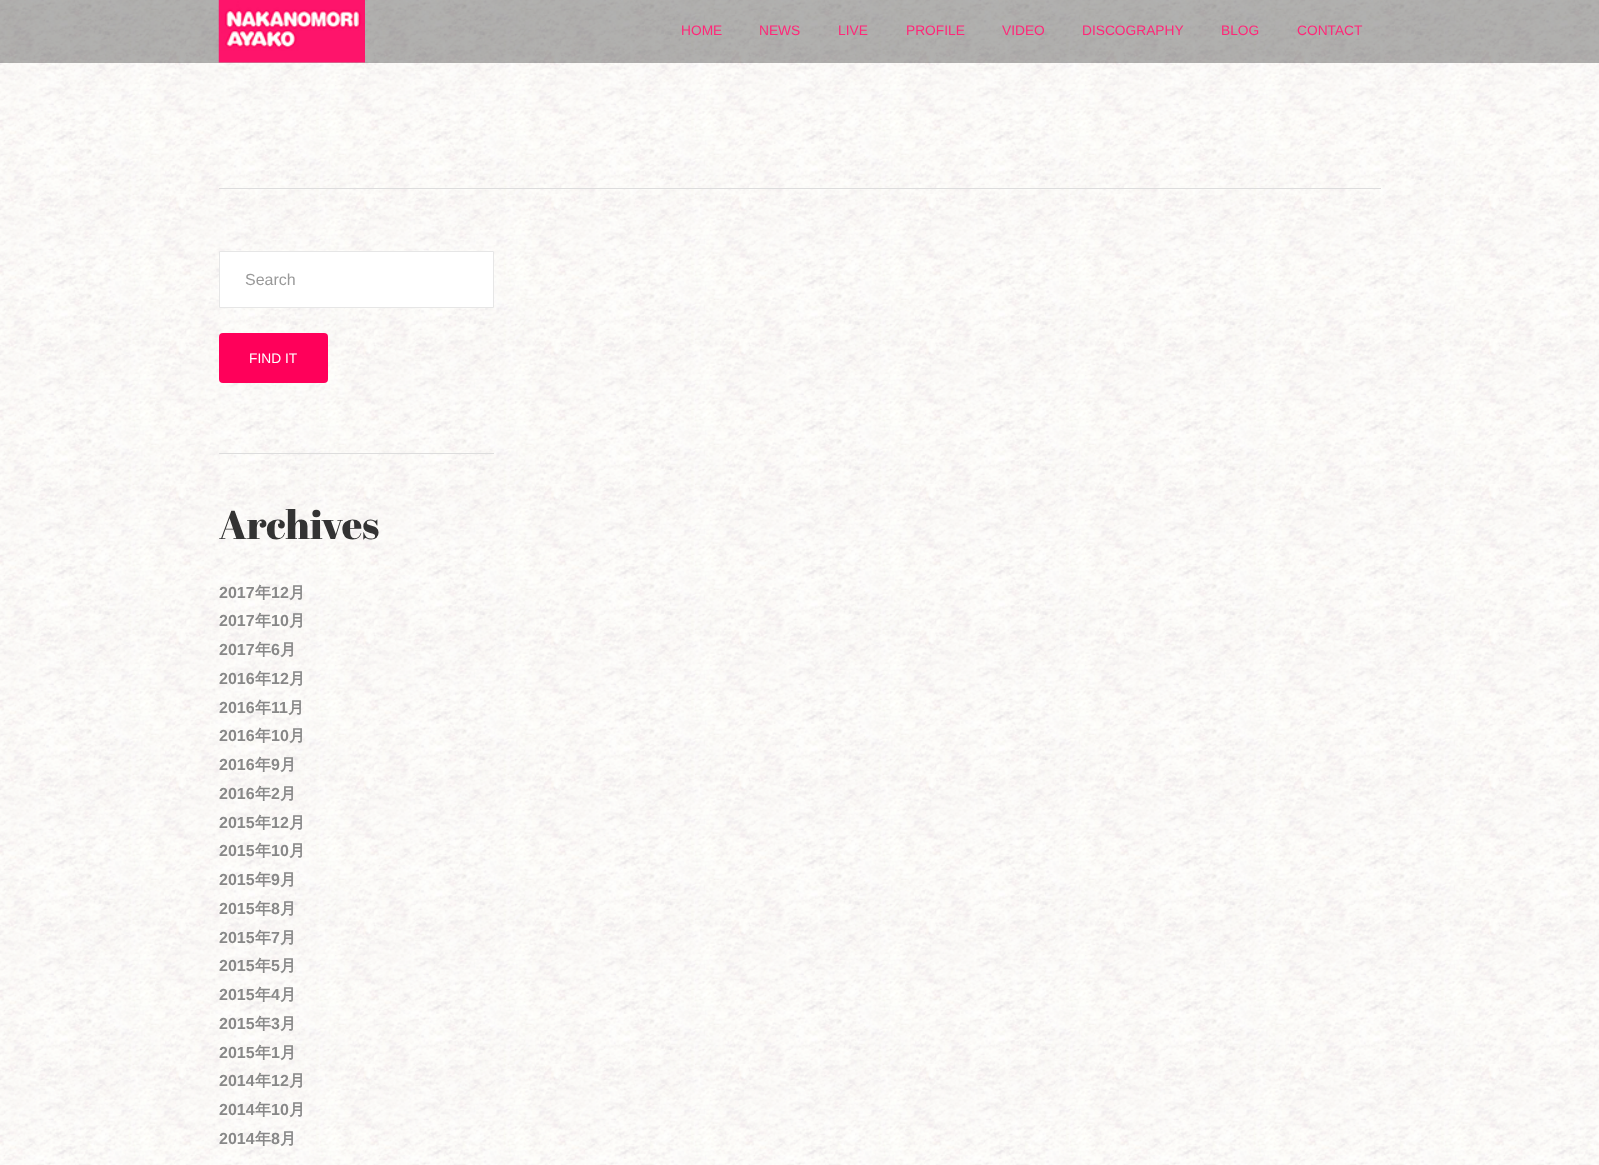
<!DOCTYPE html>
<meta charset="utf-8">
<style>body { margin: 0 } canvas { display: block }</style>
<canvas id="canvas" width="1599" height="1165"></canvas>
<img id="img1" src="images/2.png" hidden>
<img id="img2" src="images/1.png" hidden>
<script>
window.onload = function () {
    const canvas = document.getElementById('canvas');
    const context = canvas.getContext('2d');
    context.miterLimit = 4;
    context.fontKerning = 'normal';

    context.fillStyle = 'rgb(255, 255, 255)';
    context.fillRect(0, 0, 1599, 1165);
    context.drawImage(document.getElementById('img1'), 0, 0, 1599, 1165);
    context.fillStyle = 'rgba(0, 0, 0, 0.3)';
    context.fillRect(0, 0, 1599, 63);
    context.drawImage(document.getElementById('img2'), 218, 0, 147, 63);
    context.fillStyle = 'rgb(221, 221, 221)';
    context.fillRect(219, 188, 1162, 1);
    context.fillRect(219, 453, 275, 1);
    context.fillStyle = 'rgb(255, 255, 255)';
    context.beginPath();
    context.rect(219.5, 251.5, 274, 56);
    context.fill();
    context.strokeStyle = 'rgb(230, 230, 230)';
    context.stroke();
    context.fillStyle = 'rgb(255, 0, 90)';
    context.beginPath();
    context.roundRect(219, 333, 109, 50, 4);
    context.fill();
    context.font = '13.75px Liberation Sans';
    context.fillStyle = 'rgb(255, 39, 120)';
    context.fillText('HOME', 681, 35);
    context.fillText('NEWS', 759, 35);
    context.fillText('LIVE', 838, 35);
    context.fillText('PROFILE', 906, 35);
    context.fillText('VIDEO', 1002, 35);
    context.fillText('DISCOGRAPHY', 1082, 35);
    context.fillText('BLOG', 1221, 35);
    context.fillText('CONTACT', 1297, 35);
    context.font = '16px Liberation Sans';
    context.fillStyle = 'rgb(153, 153, 153)';
    context.fillText('Search', 245, 285);
    context.font = '13.75px Liberation Sans';
    context.fillStyle = 'rgb(255, 255, 255)';
    context.fillText('FIND IT', 249, 363);
    context.font = '40px Abril Fatface';
    context.fillStyle = 'rgb(51, 51, 51)';
    context.fillText('Archives', 219, 539);
    context.font = 'bold 16px Liberation Sans';
    context.fillStyle = 'rgb(136, 136, 136)';
    context.fillText('2017', 219, 598);
    context.font = 'bold 16px WenQuanYi Zen Hei';
    context.fillText('年', 255, 598);
    context.font = 'bold 16px Liberation Sans';
    context.fillText('12', 271, 598);
    context.font = 'bold 16px WenQuanYi Zen Hei';
    context.fillText('月', 289, 598);
    context.font = 'bold 16px Liberation Sans';
    context.fillText('2017', 219, 626);
    context.font = 'bold 16px WenQuanYi Zen Hei';
    context.fillText('年', 255, 626);
    context.font = 'bold 16px Liberation Sans';
    context.fillText('10', 271, 626);
    context.font = 'bold 16px WenQuanYi Zen Hei';
    context.fillText('月', 289, 626);
    context.font = 'bold 16px Liberation Sans';
    context.fillText('2017', 219, 655);
    context.font = 'bold 16px WenQuanYi Zen Hei';
    context.fillText('年', 255, 655);
    context.font = 'bold 16px Liberation Sans';
    context.fillText('6', 271, 655);
    context.font = 'bold 16px WenQuanYi Zen Hei';
    context.fillText('月', 280, 655);
    context.font = 'bold 16px Liberation Sans';
    context.fillText('2016', 219, 684);
    context.font = 'bold 16px WenQuanYi Zen Hei';
    context.fillText('年', 255, 684);
    context.font = 'bold 16px Liberation Sans';
    context.fillText('12', 271, 684);
    context.font = 'bold 16px WenQuanYi Zen Hei';
    context.fillText('月', 289, 684);
    context.font = 'bold 16px Liberation Sans';
    context.fillText('2016', 219, 713);
    context.font = 'bold 16px WenQuanYi Zen Hei';
    context.fillText('年', 255, 713);
    context.font = 'bold 16px Liberation Sans';
    context.fillText('11', 271, 713);
    context.font = 'bold 16px WenQuanYi Zen Hei';
    context.fillText('月', 288, 713);
    context.font = 'bold 16px Liberation Sans';
    context.fillText('2016', 219, 741);
    context.font = 'bold 16px WenQuanYi Zen Hei';
    context.fillText('年', 255, 741);
    context.font = 'bold 16px Liberation Sans';
    context.fillText('10', 271, 741);
    context.font = 'bold 16px WenQuanYi Zen Hei';
    context.fillText('月', 289, 741);
    context.font = 'bold 16px Liberation Sans';
    context.fillText('2016', 219, 770);
    context.font = 'bold 16px WenQuanYi Zen Hei';
    context.fillText('年', 255, 770);
    context.font = 'bold 16px Liberation Sans';
    context.fillText('9', 271, 770);
    context.font = 'bold 16px WenQuanYi Zen Hei';
    context.fillText('月', 280, 770);
    context.font = 'bold 16px Liberation Sans';
    context.fillText('2016', 219, 799);
    context.font = 'bold 16px WenQuanYi Zen Hei';
    context.fillText('年', 255, 799);
    context.font = 'bold 16px Liberation Sans';
    context.fillText('2', 271, 799);
    context.font = 'bold 16px WenQuanYi Zen Hei';
    context.fillText('月', 280, 799);
    context.font = 'bold 16px Liberation Sans';
    context.fillText('2015', 219, 828);
    context.font = 'bold 16px WenQuanYi Zen Hei';
    context.fillText('年', 255, 828);
    context.font = 'bold 16px Liberation Sans';
    context.fillText('12', 271, 828);
    context.font = 'bold 16px WenQuanYi Zen Hei';
    context.fillText('月', 289, 828);
    context.font = 'bold 16px Liberation Sans';
    context.fillText('2015', 219, 856);
    context.font = 'bold 16px WenQuanYi Zen Hei';
    context.fillText('年', 255, 856);
    context.font = 'bold 16px Liberation Sans';
    context.fillText('10', 271, 856);
    context.font = 'bold 16px WenQuanYi Zen Hei';
    context.fillText('月', 289, 856);
    context.font = 'bold 16px Liberation Sans';
    context.fillText('2015', 219, 885);
    context.font = 'bold 16px WenQuanYi Zen Hei';
    context.fillText('年', 255, 885);
    context.font = 'bold 16px Liberation Sans';
    context.fillText('9', 271, 885);
    context.font = 'bold 16px WenQuanYi Zen Hei';
    context.fillText('月', 280, 885);
    context.font = 'bold 16px Liberation Sans';
    context.fillText('2015', 219, 914);
    context.font = 'bold 16px WenQuanYi Zen Hei';
    context.fillText('年', 255, 914);
    context.font = 'bold 16px Liberation Sans';
    context.fillText('8', 271, 914);
    context.font = 'bold 16px WenQuanYi Zen Hei';
    context.fillText('月', 280, 914);
    context.font = 'bold 16px Liberation Sans';
    context.fillText('2015', 219, 943);
    context.font = 'bold 16px WenQuanYi Zen Hei';
    context.fillText('年', 255, 943);
    context.font = 'bold 16px Liberation Sans';
    context.fillText('7', 271, 943);
    context.font = 'bold 16px WenQuanYi Zen Hei';
    context.fillText('月', 280, 943);
    context.font = 'bold 16px Liberation Sans';
    context.fillText('2015', 219, 971);
    context.font = 'bold 16px WenQuanYi Zen Hei';
    context.fillText('年', 255, 971);
    context.font = 'bold 16px Liberation Sans';
    context.fillText('5', 271, 971);
    context.font = 'bold 16px WenQuanYi Zen Hei';
    context.fillText('月', 280, 971);
    context.font = 'bold 16px Liberation Sans';
    context.fillText('2015', 219, 1000);
    context.font = 'bold 16px WenQuanYi Zen Hei';
    context.fillText('年', 255, 1000);
    context.font = 'bold 16px Liberation Sans';
    context.fillText('4', 271, 1000);
    context.font = 'bold 16px WenQuanYi Zen Hei';
    context.fillText('月', 280, 1000);
    context.font = 'bold 16px Liberation Sans';
    context.fillText('2015', 219, 1029);
    context.font = 'bold 16px WenQuanYi Zen Hei';
    context.fillText('年', 255, 1029);
    context.font = 'bold 16px Liberation Sans';
    context.fillText('3', 271, 1029);
    context.font = 'bold 16px WenQuanYi Zen Hei';
    context.fillText('月', 280, 1029);
    context.font = 'bold 16px Liberation Sans';
    context.fillText('2015', 219, 1058);
    context.font = 'bold 16px WenQuanYi Zen Hei';
    context.fillText('年', 255, 1058);
    context.font = 'bold 16px Liberation Sans';
    context.fillText('1', 271, 1058);
    context.font = 'bold 16px WenQuanYi Zen Hei';
    context.fillText('月', 280, 1058);
    context.font = 'bold 16px Liberation Sans';
    context.fillText('2014', 219, 1086);
    context.font = 'bold 16px WenQuanYi Zen Hei';
    context.fillText('年', 255, 1086);
    context.font = 'bold 16px Liberation Sans';
    context.fillText('12', 271, 1086);
    context.font = 'bold 16px WenQuanYi Zen Hei';
    context.fillText('月', 289, 1086);
    context.font = 'bold 16px Liberation Sans';
    context.fillText('2014', 219, 1115);
    context.font = 'bold 16px WenQuanYi Zen Hei';
    context.fillText('年', 255, 1115);
    context.font = 'bold 16px Liberation Sans';
    context.fillText('10', 271, 1115);
    context.font = 'bold 16px WenQuanYi Zen Hei';
    context.fillText('月', 289, 1115);
    context.font = 'bold 16px Liberation Sans';
    context.fillText('2014', 219, 1144);
    context.font = 'bold 16px WenQuanYi Zen Hei';
    context.fillText('年', 255, 1144);
    context.font = 'bold 16px Liberation Sans';
    context.fillText('8', 271, 1144);
    context.font = 'bold 16px WenQuanYi Zen Hei';
    context.fillText('月', 280, 1144);
};
</script>
